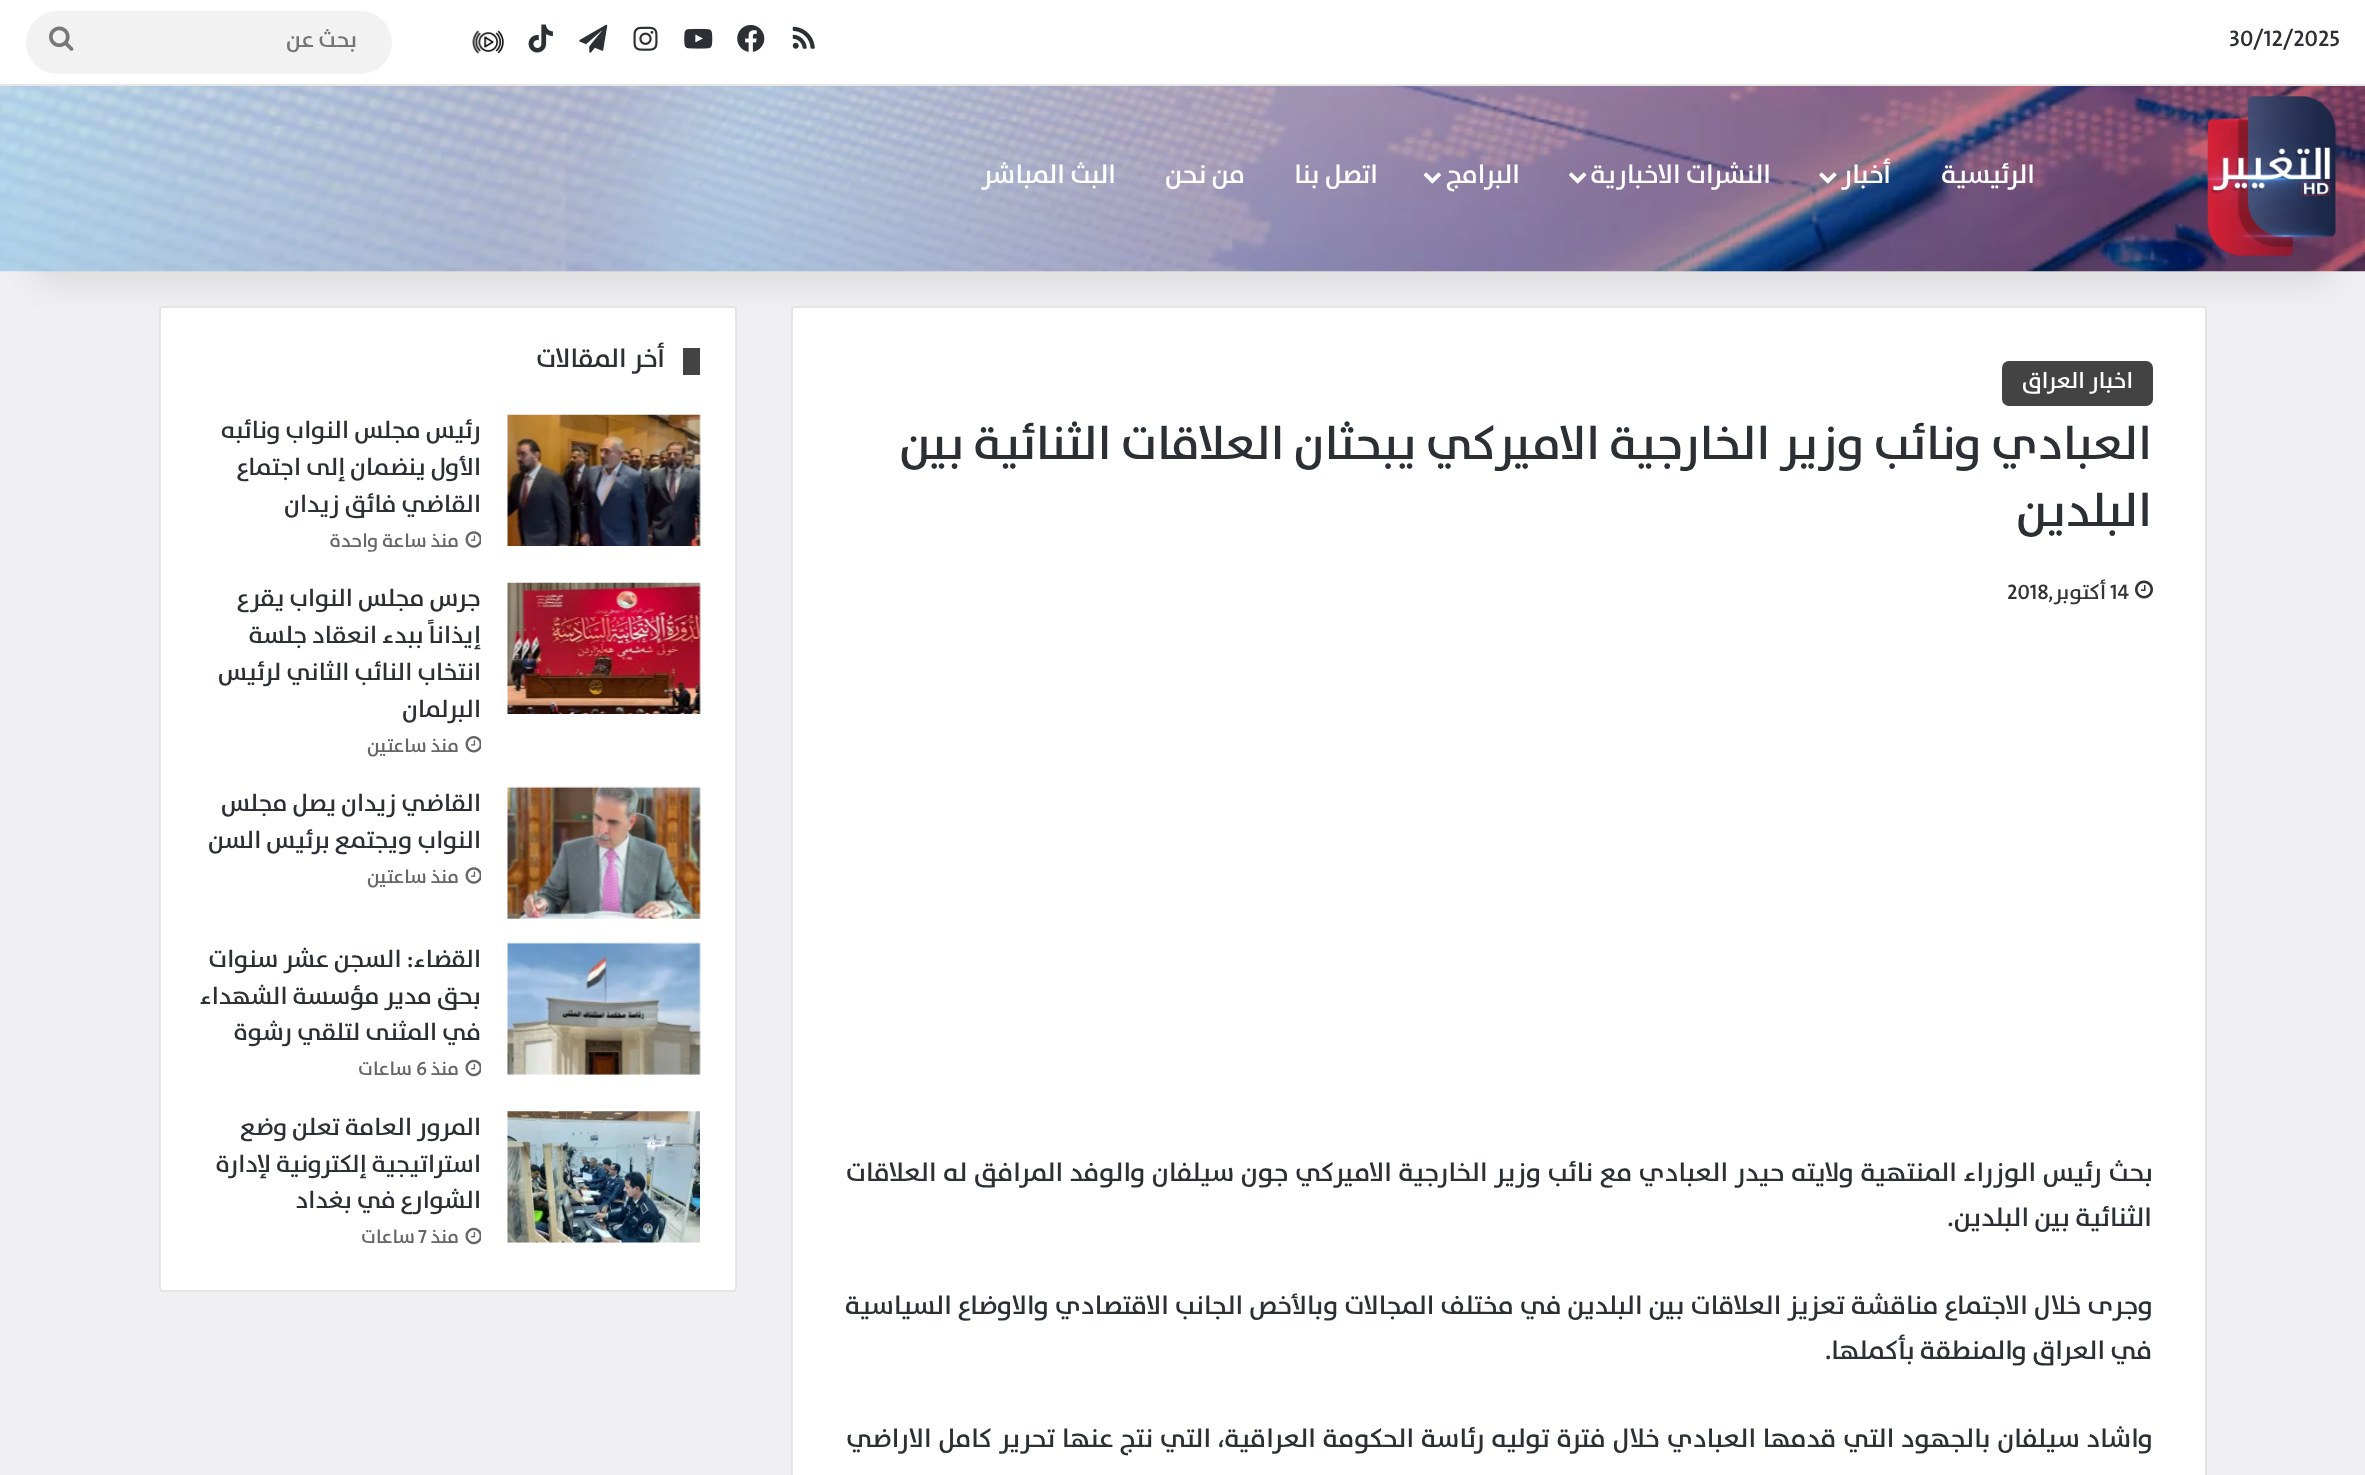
<!DOCTYPE html>
<meta charset="utf-8">
<style>body { margin: 0 } canvas { display: block }</style>
<canvas id="canvas" width="2365" height="1475"></canvas>
<img id="img1" src="images/1.png" hidden>
<img id="img2" src="images/2.png" hidden>
<img id="img3" src="images/3.png" hidden>
<img id="img4" src="images/4.png" hidden>
<img id="img5" src="images/5.png" hidden>
<img id="img6" src="images/6.png" hidden>
<img id="img7" src="images/7.png" hidden>
<img id="img8" src="images/8.png" hidden>
<img id="img9" src="images/9.png" hidden>
<img id="img10" src="images/10.png" hidden>
<img id="img11" src="images/11.png" hidden>
<img id="img12" src="images/12.png" hidden>
<img id="img13" src="images/13.png" hidden>
<img id="img14" src="images/14.png" hidden>
<img id="img15" src="images/15.png" hidden>
<img id="img16" src="images/16.png" hidden>
<img id="img17" src="images/17.png" hidden>
<img id="img18" src="images/18.png" hidden>
<img id="img19" src="images/19.png" hidden>
<img id="img20" src="images/20.png" hidden>
<img id="img21" src="images/21.png" hidden>
<img id="img22" src="images/22.png" hidden>
<script>
window.onload = function () {
    const canvas = document.getElementById('canvas');
    const context = canvas.getContext('2d');
    context.miterLimit = 4;
    context.fontKerning = 'normal';

    context.fillStyle = 'rgb(240, 240, 242)';
    context.fillRect(0, 0, 2365, 1475);
    context.fillStyle = 'rgb(255, 255, 255)';
    context.beginPath();
    context.roundRect(791, 306, 1416, 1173, 4);
    context.fill();
    context.beginPath();
    context.roundRect(792, 307, 1414, 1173, 3);
    context.strokeStyle = 'rgba(0, 0, 0, 0.1)';
    context.lineWidth = 2;
    context.stroke();
    context.beginPath();
    context.roundRect(159, 306, 578, 986, 4);
    context.fill();
    context.beginPath();
    context.roundRect(160, 307, 576, 984, 3);
    context.stroke();
    context.fillStyle = 'rgba(0, 0, 0, 0.1)';
    context.filter = 'blur(17.5px)';
    context.beginPath();
    context.rect(35, 79, 2296, 201);
    context.fill();
    context.filter = 'none';
    context.fillStyle = 'rgb(255, 255, 255)';
    context.fillRect(0, 0, 2365, 84);
    context.fillStyle = 'rgb(230, 230, 230)';
    context.fillRect(0, 84, 2365, 2);
    context.drawImage(document.getElementById('img1'), 792, 26, 23, 23);
    context.drawImage(document.getElementById('img2'), 737, 24, 28, 28);
    context.drawImage(document.getElementById('img3'), 684, 28, 29, 21);
    context.drawImage(document.getElementById('img4'), 633, 26, 25, 25);
    context.drawImage(document.getElementById('img5'), 579, 24, 29, 29);
    context.drawImage(document.getElementById('img6'), 528, 24, 25, 29);
    context.drawImage(document.getElementById('img7'), 472, 30, 32, 24);
    context.fillStyle = 'rgb(242, 242, 242)';
    context.beginPath();
    context.roundRect(26, 11, 366, 63, 31.5);
    context.fill();
    context.drawImage(document.getElementById('img8'), 49, 26, 25, 25);
    context.drawImage(document.getElementById('img9'), 0, 86, 2365, 186);
    context.drawImage(document.getElementById('img10'), 2203, 96, 133, 160);
    context.drawImage(document.getElementById('img11'), 1819, 172, 18, 12);
    context.drawImage(document.getElementById('img12'), 1569, 172, 18, 12);
    context.drawImage(document.getElementById('img13'), 1423, 172, 18, 12);
    context.fillStyle = 'rgb(67, 67, 67)';
    context.beginPath();
    context.roundRect(2002, 361, 151, 45, 7);
    context.fill();
    context.drawImage(document.getElementById('img14'), 2135, 580, 18, 19);
    context.fillRect(683, 348, 17, 27);
    context.drawImage(document.getElementById('img15'), 507, 414, 194, 132);
    context.drawImage(document.getElementById('img16'), 465, 531, 16, 17);
    context.drawImage(document.getElementById('img17'), 507, 582, 194, 132);
    context.drawImage(document.getElementById('img18'), 465, 736, 16, 17);
    context.drawImage(document.getElementById('img19'), 507, 786, 194, 133);
    context.drawImage(document.getElementById('img16'), 465, 867, 16, 17);
    context.drawImage(document.getElementById('img20'), 507, 942, 194, 133);
    context.drawImage(document.getElementById('img21'), 465, 1059, 16, 18);
    context.drawImage(document.getElementById('img22'), 507, 1111, 193, 132);
    context.drawImage(document.getElementById('img21'), 465, 1227, 16, 18);
    context.font = '600 22.75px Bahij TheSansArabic';
    context.fillStyle = 'rgb(44, 47, 52)';
    context.fillText('30/12/2025', 2229, 46);
    context.direction = 'rtl';
    context.fillStyle = 'rgb(117, 117, 117)';
    context.fillText('بحث عن', 357, 47);
    context.font = '600 26.25px Bahij TheSansArabic';
    context.fillStyle = 'rgb(255, 255, 255)';
    context.fillText('الرئيسية', 2035, 183);
    context.fillText('أخبار', 1891, 183);
    context.fillText('النشرات الاخبارية', 1771, 183);
    context.fillText('البرامج', 1520, 183);
    context.fillText('اتصل بنا', 1378, 183);
    context.fillText('من نحن', 1245, 183);
    context.fillText('البث المباشر', 1116, 183);
    context.font = '600 22.75px Bahij TheSansArabic';
    context.fillText('اخبار العراق', 2133, 388);
    context.font = '600 47.25px Bahij TheSansArabic';
    context.fillStyle = 'rgb(44, 47, 52)';
    context.fillText('العبادي ونائب وزير الخارجية الاميركي يبحثان العلاقات الثنائية بين', 2152, 459);
    context.fillText('البلدين', 2152, 526);
    context.direction = 'ltr';
    context.font = '600 21px Bahij TheSansArabic';
    context.fillStyle = 'rgb(51, 51, 51)';
    context.fillText('14', 2110, 599);
    context.direction = 'rtl';
    context.fillText('أكتوبر,', 2106, 599);
    context.direction = 'ltr';
    context.fillText('2018', 2007, 599);
    context.wordSpacing = '1.25px';
    context.direction = 'rtl';
    context.font = '600 26.25px Bahij TheSansArabic';
    context.fillStyle = 'rgb(44, 47, 52)';
    context.fillText('بحث رئيس الوزراء المنتهية ولايته حيدر العبادي مع نائب وزير الخارجية الاميركي جون سيلفان والوفد المرافق له العلاقات', 2153, 1181);
    context.wordSpacing = '0px';
    context.fillText('الثنائية بين البلدين.', 2152, 1226);
    context.wordSpacing = '0.75px';
    context.fillText('وجرى خلال الاجتماع مناقشة تعزيز العلاقات بين البلدين في مختلف المجالات وبالأخص الجانب الاقتصادي والاوضاع السياسية', 2153, 1314);
    context.wordSpacing = '0px';
    context.fillText('في العراق والمنطقة بأكملها.', 2152, 1359);
    context.wordSpacing = '1.5px';
    context.fillText('واشاد سيلفان بالجهود التي قدمها العبادي خلال فترة توليه رئاسة الحكومة العراقية، التي نتج عنها تحرير كامل الاراضي', 2153, 1447);
    context.wordSpacing = '0px';
    context.fillText('أخر المقالات', 665, 367);
    context.font = '600 24.5px Bahij TheSansArabic';
    context.fillText('رئيس مجلس النواب ونائبه', 481, 438);
    context.fillText('الأول ينضمان إلى اجتماع', 481, 475);
    context.fillText('القاضي فائق زيدان', 481, 512);
    context.font = '600 19.25px Bahij TheSansArabic';
    context.fillStyle = 'rgb(102, 102, 102)';
    context.fillText('منذ ساعة واحدة', 459, 547);
    context.font = '600 24.5px Bahij TheSansArabic';
    context.fillStyle = 'rgb(44, 47, 52)';
    context.fillText('جرس مجلس النواب يقرع', 481, 606);
    context.fillText('إيذاناً ببدء انعقاد جلسة', 481, 643);
    context.fillText('انتخاب النائب الثاني لرئيس', 481, 680);
    context.fillText('البرلمان', 481, 717);
    context.font = '600 19.25px Bahij TheSansArabic';
    context.fillStyle = 'rgb(102, 102, 102)';
    context.fillText('منذ ساعتين', 459, 752);
    context.font = '600 24.5px Bahij TheSansArabic';
    context.fillStyle = 'rgb(44, 47, 52)';
    context.fillText('القاضي زيدان يصل مجلس', 481, 811);
    context.fillText('النواب ويجتمع برئيس السن', 481, 848);
    context.font = '600 19.25px Bahij TheSansArabic';
    context.fillStyle = 'rgb(102, 102, 102)';
    context.fillText('منذ ساعتين', 459, 883);
    context.font = '600 24.5px Bahij TheSansArabic';
    context.fillStyle = 'rgb(44, 47, 52)';
    context.fillText('القضاء: السجن عشر سنوات', 481, 967);
    context.fillText('بحق مدير مؤسسة الشهداء', 481, 1004);
    context.fillText('في المثنى لتلقي رشوة', 481, 1040);
    context.font = '600 19.25px Bahij TheSansArabic';
    context.fillStyle = 'rgb(102, 102, 102)';
    context.fillText('منذ', 459, 1075);
    context.direction = 'ltr';
    context.fillText('6', 416, 1075);
    context.direction = 'rtl';
    context.fillText('ساعات', 412, 1075);
    context.font = '600 24.5px Bahij TheSansArabic';
    context.fillStyle = 'rgb(44, 47, 52)';
    context.fillText('المرور العامة تعلن وضع', 481, 1135);
    context.fillText('استراتيجية إلكترونية لإدارة', 481, 1172);
    context.fillText('الشوارع في بغداد', 481, 1208);
    context.font = '600 19.25px Bahij TheSansArabic';
    context.fillStyle = 'rgb(102, 102, 102)';
    context.fillText('منذ', 459, 1243);
    context.direction = 'ltr';
    context.fillText('7', 418, 1243);
    context.direction = 'rtl';
    context.fillText('ساعات', 415, 1243);
};
</script>
